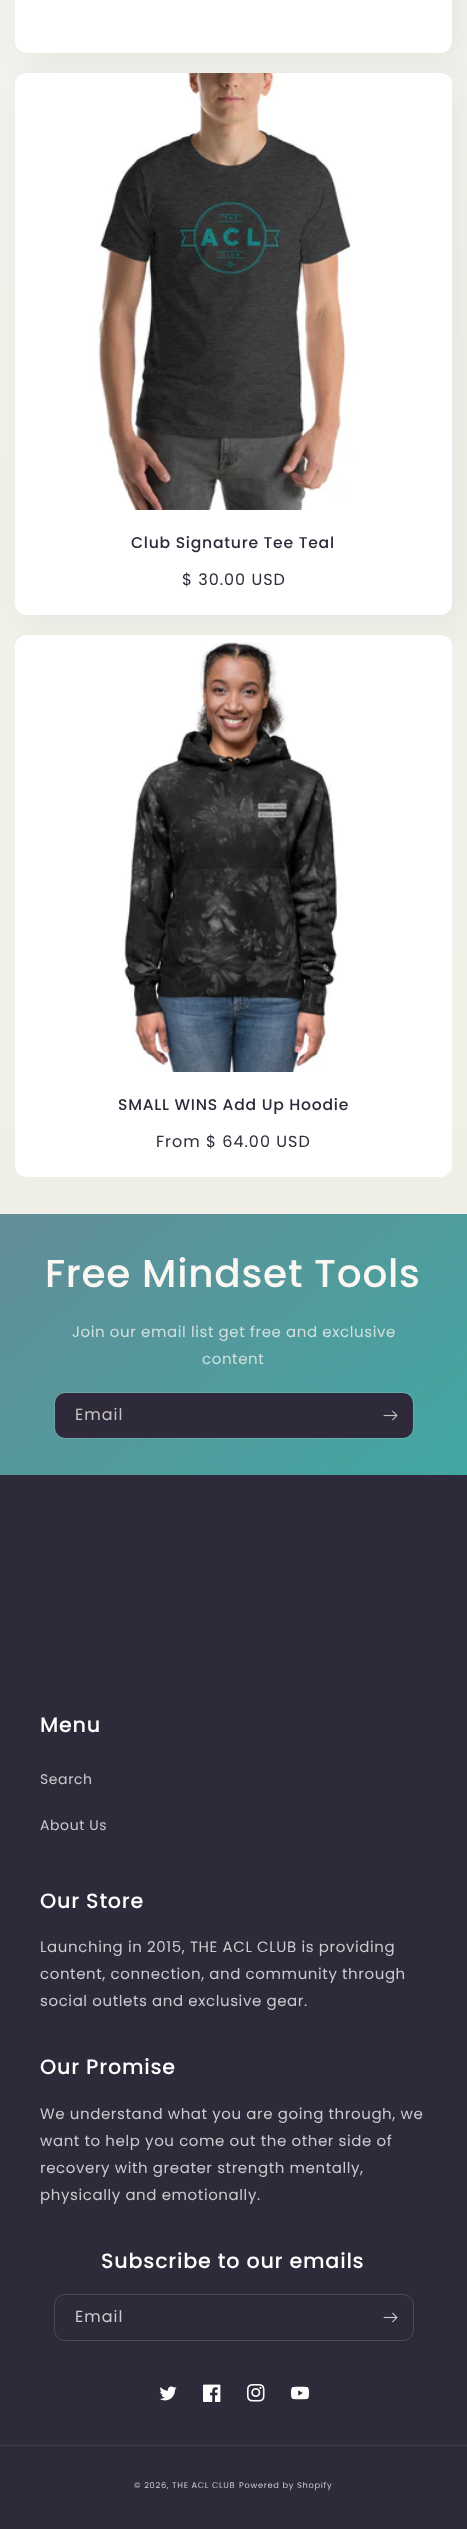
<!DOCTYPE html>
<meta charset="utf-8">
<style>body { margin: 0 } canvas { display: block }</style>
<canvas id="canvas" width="467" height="2529"></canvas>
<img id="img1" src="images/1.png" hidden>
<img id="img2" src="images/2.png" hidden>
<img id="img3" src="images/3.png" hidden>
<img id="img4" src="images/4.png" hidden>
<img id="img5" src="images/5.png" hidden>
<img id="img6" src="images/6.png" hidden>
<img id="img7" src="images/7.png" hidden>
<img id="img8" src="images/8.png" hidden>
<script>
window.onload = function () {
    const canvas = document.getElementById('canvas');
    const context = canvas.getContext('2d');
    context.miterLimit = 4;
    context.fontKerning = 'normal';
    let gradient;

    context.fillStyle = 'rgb(255, 255, 255)';
    context.fillRect(0, 0, 467, 2529);
    gradient = context.createLinearGradient(233, 0, 234, 2529);
    gradient.addColorStop(0, 'rgb(240, 244, 236)');
    gradient.addColorStop(1, 'rgb(241, 235, 226)');
    context.fillStyle = gradient;
    context.fillRect(0, 0, 467, 1214);
    context.fillStyle = 'rgba(46, 42, 57, 0.05)';
    context.filter = 'blur(17.5px)';
    context.beginPath();
    context.roundRect(25, -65, 437, 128, 12);
    context.fill();
    context.filter = 'none';
    context.filter = 'blur(17.5px)';
    context.beginPath();
    context.roundRect(25, 83, 437, 542, 12);
    context.fill();
    context.filter = 'none';
    context.fillStyle = 'rgb(255, 255, 255)';
    context.beginPath();
    context.roundRect(15, -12, 437, 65, 12);
    context.fill();
    context.beginPath();
    context.roundRect(15, 73, 437, 542, 12);
    context.fill();
    context.drawImage(document.getElementById('img1'), 15, 73, 437, 437);
    context.beginPath();
    context.roundRect(15, 635, 437, 542, 12);
    context.fill();
    context.drawImage(document.getElementById('img2'), 15, 635, 437, 437);
    gradient = context.createLinearGradient(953, 2122, -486, 407);
    gradient.addColorStop(0.32, 'rgb(60, 172, 162)');
    gradient.addColorStop(1, 'rgb(158, 92, 139)');
    context.fillStyle = gradient;
    context.fillRect(0, 1214, 467, 261);
    context.fillStyle = 'rgb(46, 42, 57)';
    context.beginPath();
    context.roundRect(55, 1393, 358, 45, 10);
    context.fill();
    context.beginPath();
    context.roundRect(54.5, 1392.5, 359, 46, 10.5);
    context.strokeStyle = 'rgba(250, 247, 242, 0.15)';
    context.stroke();
    context.drawImage(document.getElementById('img3'), 383, 1410, 15, 11);
    context.fillRect(0, 1475, 467, 1054);
    context.beginPath();
    context.roundRect(54.5, 2294.5, 359, 46, 10.5);
    context.strokeStyle = 'rgb(77, 74, 87)';
    context.stroke();
    context.drawImage(document.getElementById('img4'), 383, 2312, 15, 11);
    context.drawImage(document.getElementById('img5'), 159, 2386, 18, 15);
    context.drawImage(document.getElementById('img6'), 203, 2384, 18, 18);
    context.drawImage(document.getElementById('img7'), 247, 2384, 18, 18);
    context.drawImage(document.getElementById('img8'), 291, 2386, 18, 14);
    context.fillStyle = 'rgb(63, 59, 73)';
    context.fillRect(0, 2445, 467, 1);
    context.letterSpacing = '0.75px';
    context.font = '500 15.6px Poppins';
    context.fillStyle = 'rgb(46, 42, 57)';
    context.fillText('Club Signature Tee Teal', 131, 548);
    context.letterSpacing = '1px';
    context.font = '16px Poppins';
    context.fillText('$ 30.00 USD', 182, 585);
    context.letterSpacing = '0.75px';
    context.font = '500 15.6px Poppins';
    context.fillText('SMALL WINS Add Up Hoodie', 118, 1110);
    context.letterSpacing = '1px';
    context.font = '16px Poppins';
    context.fillText('From $ 64.00 USD', 156, 1147);
    context.letterSpacing = '0.75px';
    context.font = '500 39px Poppins';
    context.fillStyle = 'rgb(250, 247, 242)';
    context.fillText('Free Mindset Tools', 45, 1287);
    context.letterSpacing = '0.6px';
    context.font = '15px Poppins';
    context.fillStyle = 'rgb(208, 224, 221)';
    context.fillText('Join our email list get free and exclusive', 72, 1337);
    context.fillText('content', 202, 1364);
    context.letterSpacing = '1px';
    context.font = '16px Poppins';
    context.fillStyle = 'rgb(199, 196, 196)';
    context.fillText('Email', 75, 1420);
    context.letterSpacing = '0.75px';
    context.font = '500 20.75px Poppins';
    context.fillStyle = 'rgb(255, 255, 255)';
    context.fillText('Menu', 40, 1732);
    context.letterSpacing = '0.6px';
    context.font = '14px Poppins';
    context.fillStyle = 'rgb(203, 202, 206)';
    context.fillText('Search', 40, 1784);
    context.fillText('About Us', 40, 1830);
    context.letterSpacing = '0.75px';
    context.font = '500 20.75px Poppins';
    context.fillStyle = 'rgb(255, 255, 255)';
    context.fillText('Our Store', 40, 1908);
    context.letterSpacing = '0.6px';
    context.font = '15px Poppins';
    context.fillStyle = 'rgb(203, 202, 206)';
    context.fillText('Launching in 2015, THE ACL CLUB is providing', 40, 1952);
    context.fillText('content, connection, and community through', 40, 1979);
    context.fillText('social outlets and exclusive gear.', 40, 2006);
    context.letterSpacing = '0.75px';
    context.font = '500 20.75px Poppins';
    context.fillStyle = 'rgb(255, 255, 255)';
    context.fillText('Our Promise', 40, 2074);
    context.letterSpacing = '0.6px';
    context.font = '15px Poppins';
    context.fillStyle = 'rgb(203, 202, 206)';
    context.fillText('We understand what you are going through, we', 40, 2119);
    context.fillText('want to help you come out the other side of', 40, 2146);
    context.fillText('recovery with greater strength mentally,', 40, 2173);
    context.fillText('physically and emotionally.', 40, 2200);
    context.letterSpacing = '0.75px';
    context.font = '500 20.75px Poppins';
    context.fillStyle = 'rgb(255, 255, 255)';
    context.fillText('Subscribe to our emails', 101, 2268);
    context.letterSpacing = '1px';
    context.font = '16px Poppins';
    context.fillStyle = 'rgb(203, 202, 206)';
    context.fillText('Email', 75, 2322);
    context.letterSpacing = '0.7px';
    context.font = '8.25px Poppins';
    context.fillText('© 2026, THE ACL CLUB', 134, 2488);
    context.fillText('Powered by Shopify', 239, 2488);
};
</script>
